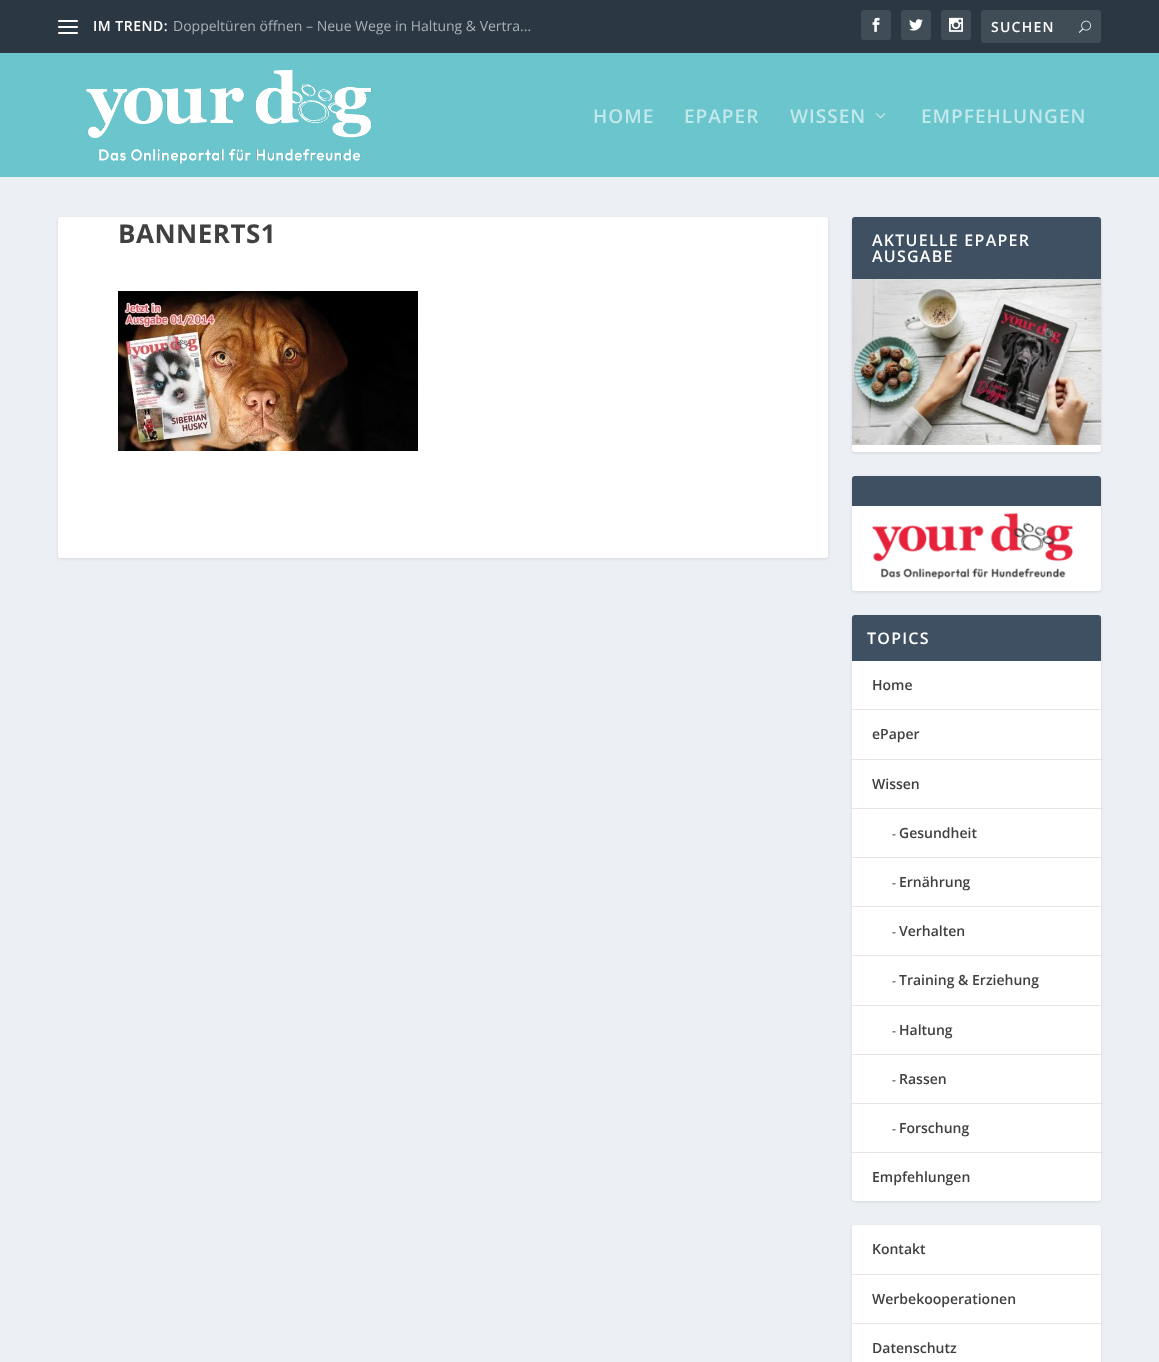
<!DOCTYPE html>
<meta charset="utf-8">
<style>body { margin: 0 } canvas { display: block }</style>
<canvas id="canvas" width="1159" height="1362"></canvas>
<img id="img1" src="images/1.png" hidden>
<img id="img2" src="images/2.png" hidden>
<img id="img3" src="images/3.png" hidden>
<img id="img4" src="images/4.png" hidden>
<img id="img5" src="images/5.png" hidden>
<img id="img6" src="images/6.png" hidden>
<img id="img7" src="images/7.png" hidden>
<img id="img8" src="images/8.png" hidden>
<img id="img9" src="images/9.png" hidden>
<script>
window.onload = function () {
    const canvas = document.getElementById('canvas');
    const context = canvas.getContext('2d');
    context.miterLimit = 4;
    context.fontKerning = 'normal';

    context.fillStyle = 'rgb(236, 240, 245)';
    context.fillRect(0, 0, 1159, 1362);
    context.fillStyle = 'rgb(43, 56, 67)';
    context.fillRect(0, 0, 1159, 53);
    context.fillStyle = 'rgb(255, 255, 255)';
    context.beginPath();
    context.roundRect(58, 20, 20, 2, 1);
    context.fill();
    context.beginPath();
    context.roundRect(58, 26, 20, 2, 1);
    context.fill();
    context.beginPath();
    context.roundRect(58, 32, 20, 2, 1);
    context.fill();
    context.fillStyle = 'rgb(64, 76, 86)';
    context.beginPath();
    context.roundRect(861, 10, 30, 30, 3);
    context.fill();
    context.drawImage(document.getElementById('img1'), 872, 17, 8, 15);
    context.beginPath();
    context.roundRect(901, 10, 30, 30, 3);
    context.fill();
    context.drawImage(document.getElementById('img2'), 909, 19, 14, 12);
    context.beginPath();
    context.roundRect(941, 10, 30, 30, 3);
    context.fill();
    context.drawImage(document.getElementById('img3'), 949, 17, 14, 15);
    context.beginPath();
    context.roundRect(981, 10, 120, 33, 3);
    context.fill();
    context.drawImage(document.getElementById('img4'), 1079, 20, 12, 13);
    context.fillStyle = 'rgb(106, 197, 204)';
    context.fillRect(0, 53, 1159, 124);
    context.drawImage(document.getElementById('img5'), 86, 69, 286, 95);
    context.drawImage(document.getElementById('img6'), 875, 113, 11, 6);
    context.fillStyle = 'rgba(0, 0, 0, 0.1)';
    context.filter = 'blur(1.5px)';
    context.beginPath();
    context.roundRect(58, 218, 770, 341, 3);
    context.fill();
    context.filter = 'none';
    context.fillStyle = 'rgb(255, 255, 255)';
    context.beginPath();
    context.roundRect(58, 217, 770, 341, 3);
    context.fill();
    context.drawImage(document.getElementById('img7'), 118, 291, 300, 160);
    context.fillStyle = 'rgba(0, 0, 0, 0.1)';
    context.filter = 'blur(1.5px)';
    context.beginPath();
    context.roundRect(852, 218, 249, 235, 3);
    context.fill();
    context.filter = 'none';
    context.fillStyle = 'rgb(255, 255, 255)';
    context.beginPath();
    context.roundRect(852, 217, 249, 235, 3);
    context.fill();
    context.fillStyle = 'rgb(62, 80, 98)';
    context.beginPath();
    context.roundRect(852, 217, 249, 62, [3, 3, 0, 0]);
    context.fill();
    context.drawImage(document.getElementById('img8'), 852, 279, 249, 166);
    context.fillStyle = 'rgba(0, 0, 0, 0.1)';
    context.filter = 'blur(1.5px)';
    context.beginPath();
    context.roundRect(852, 477, 249, 115, 3);
    context.fill();
    context.filter = 'none';
    context.fillStyle = 'rgb(255, 255, 255)';
    context.beginPath();
    context.roundRect(852, 476, 249, 115, 3);
    context.fill();
    context.fillStyle = 'rgb(62, 80, 98)';
    context.beginPath();
    context.roundRect(852, 476, 249, 30, [3, 3, 0, 0]);
    context.fill();
    context.drawImage(document.getElementById('img9'), 872, 512, 201, 68);
    context.fillStyle = 'rgba(0, 0, 0, 0.1)';
    context.filter = 'blur(1.5px)';
    context.beginPath();
    context.roundRect(852, 616, 249, 586, 3);
    context.fill();
    context.filter = 'none';
    context.fillStyle = 'rgb(255, 255, 255)';
    context.beginPath();
    context.roundRect(852, 615, 249, 586, 3);
    context.fill();
    context.fillStyle = 'rgb(62, 80, 98)';
    context.beginPath();
    context.roundRect(852, 615, 249, 46, [3, 3, 0, 0]);
    context.fill();
    context.fillStyle = 'rgb(230, 230, 230)';
    context.fillRect(852, 709, 249, 1);
    context.fillRect(852, 759, 249, 1);
    context.fillRect(852, 1152, 249, 1);
    context.fillRect(852, 808, 249, 1);
    context.fillRect(852, 857, 249, 1);
    context.fillRect(852, 906, 249, 1);
    context.fillRect(852, 955, 249, 1);
    context.fillRect(852, 1005, 249, 1);
    context.fillRect(852, 1054, 249, 1);
    context.fillRect(852, 1103, 249, 1);
    context.fillStyle = 'rgba(0, 0, 0, 0.1)';
    context.filter = 'blur(1.5px)';
    context.beginPath();
    context.roundRect(852, 1226, 249, 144, 3);
    context.fill();
    context.filter = 'none';
    context.fillStyle = 'rgb(255, 255, 255)';
    context.beginPath();
    context.roundRect(852, 1225, 249, 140, 3);
    context.fill();
    context.fillStyle = 'rgb(230, 230, 230)';
    context.fillRect(852, 1274, 249, 1);
    context.fillRect(852, 1323, 249, 1);
    context.letterSpacing = '0.5px';
    context.font = '600 14px Open Sans';
    context.fillStyle = 'rgb(255, 255, 255)';
    context.fillText('IM TREND:', 93, 31);
    context.letterSpacing = '0px';
    context.font = '14px Open Sans';
    context.fillStyle = 'rgb(170, 175, 180)';
    context.fillText('Doppeltüren öffnen – Neue Wege in Haltung & Vertra...', 173, 31);
    context.letterSpacing = '1.25px';
    context.font = '600 14px Open Sans';
    context.fillStyle = 'rgb(255, 255, 255)';
    context.fillText('SUCHEN', 991, 32);
    context.letterSpacing = '1px';
    context.font = '600 19px Open Sans';
    context.fillStyle = 'rgb(195, 232, 235)';
    context.fillText('HOME', 593, 123);
    context.fillText('EPAPER', 684, 123);
    context.fillText('WISSEN', 790, 123);
    context.fillText('EMPFEHLUNGEN', 921, 123);
    context.letterSpacing = '0.5px';
    context.font = 'bold 26px Open Sans';
    context.fillStyle = 'rgb(64, 64, 64)';
    context.fillText('BANNERTS1', 118, 243);
    context.letterSpacing = '1.25px';
    context.font = '600 16px Open Sans';
    context.fillStyle = 'rgb(255, 255, 255)';
    context.fillText('AKTUELLE EPAPER', 872, 246);
    context.fillText('AUSGABE', 872, 262);
    context.fillText('TOPICS', 867, 644);
    context.letterSpacing = '0px';
    context.font = '600 14px Open Sans';
    context.fillStyle = 'rgb(64, 64, 64)';
    context.fillText('Home', 872, 690);
    context.fillText('ePaper', 872, 739);
    context.fillText('Wissen', 872, 789);
    context.font = 'bold 12px Open Sans';
    context.fillStyle = 'rgb(128, 128, 128)';
    context.fillText('-', 892, 838);
    context.font = '600 14px Open Sans';
    context.fillStyle = 'rgb(64, 64, 64)';
    context.fillText('Gesundheit', 899, 838);
    context.font = 'bold 12px Open Sans';
    context.fillStyle = 'rgb(128, 128, 128)';
    context.fillText('-', 892, 887);
    context.font = '600 14px Open Sans';
    context.fillStyle = 'rgb(64, 64, 64)';
    context.fillText('Ernährung', 899, 887);
    context.font = 'bold 12px Open Sans';
    context.fillStyle = 'rgb(128, 128, 128)';
    context.fillText('-', 892, 936);
    context.font = '600 14px Open Sans';
    context.fillStyle = 'rgb(64, 64, 64)';
    context.fillText('Verhalten', 899, 936);
    context.font = 'bold 12px Open Sans';
    context.fillStyle = 'rgb(128, 128, 128)';
    context.fillText('-', 892, 985);
    context.font = '600 14px Open Sans';
    context.fillStyle = 'rgb(64, 64, 64)';
    context.fillText('Training & Erziehung', 899, 985);
    context.font = 'bold 12px Open Sans';
    context.fillStyle = 'rgb(128, 128, 128)';
    context.fillText('-', 892, 1035);
    context.font = '600 14px Open Sans';
    context.fillStyle = 'rgb(64, 64, 64)';
    context.fillText('Haltung', 899, 1035);
    context.font = 'bold 12px Open Sans';
    context.fillStyle = 'rgb(128, 128, 128)';
    context.fillText('-', 892, 1084);
    context.font = '600 14px Open Sans';
    context.fillStyle = 'rgb(64, 64, 64)';
    context.fillText('Rassen', 899, 1084);
    context.font = 'bold 12px Open Sans';
    context.fillStyle = 'rgb(128, 128, 128)';
    context.fillText('-', 892, 1133);
    context.font = '600 14px Open Sans';
    context.fillStyle = 'rgb(64, 64, 64)';
    context.fillText('Forschung', 899, 1133);
    context.fillText('Empfehlungen', 872, 1182);
    context.fillText('Kontakt', 872, 1254);
    context.fillText('Werbekooperationen', 872, 1304);
    context.fillText('Datenschutz', 872, 1353);
};
</script>
